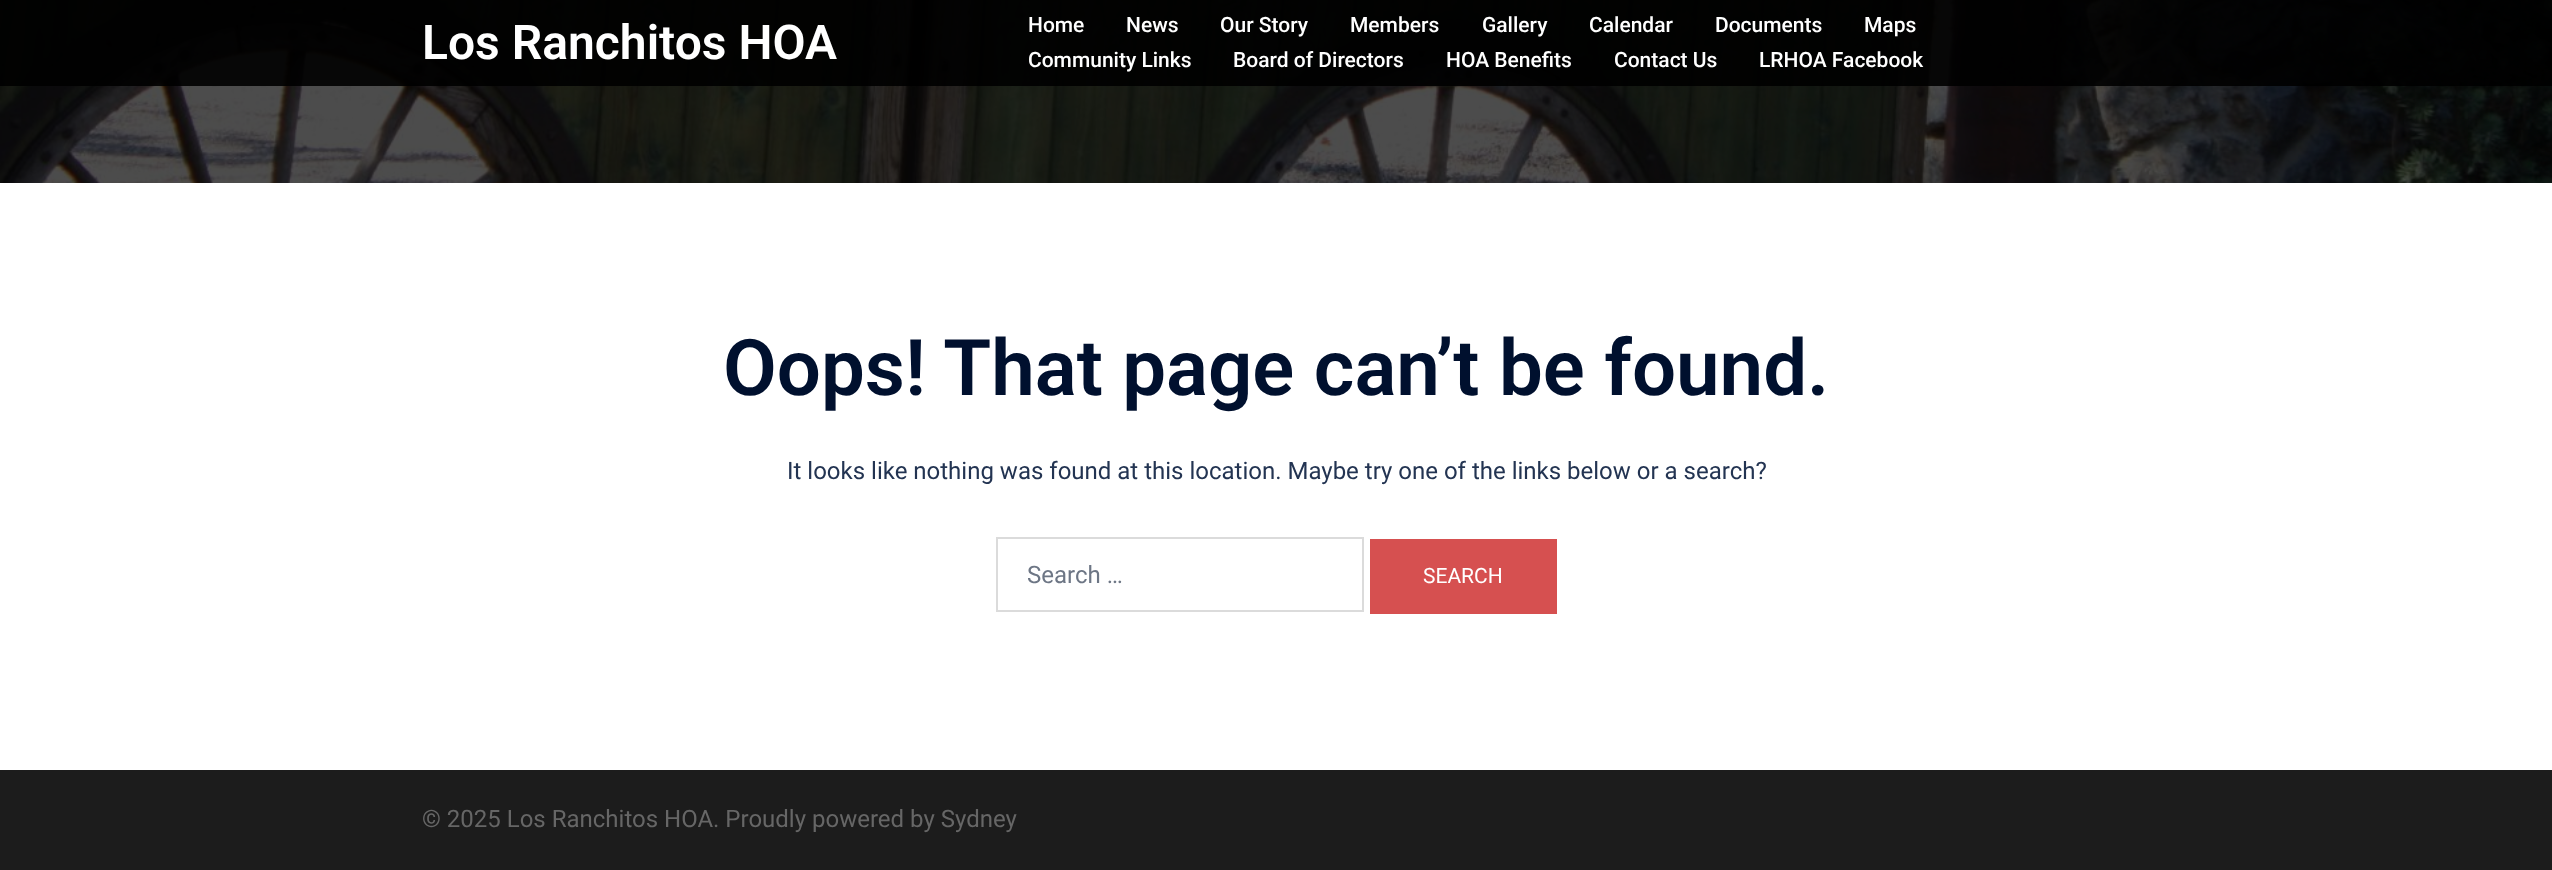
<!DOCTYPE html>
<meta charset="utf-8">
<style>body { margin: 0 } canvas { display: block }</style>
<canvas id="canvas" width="2552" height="870"></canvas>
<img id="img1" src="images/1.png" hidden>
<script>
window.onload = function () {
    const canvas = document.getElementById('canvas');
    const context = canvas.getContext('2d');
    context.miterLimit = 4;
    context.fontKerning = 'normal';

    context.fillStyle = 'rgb(255, 255, 255)';
    context.fillRect(0, 0, 2552, 870);
    context.drawImage(document.getElementById('img1'), 0, 0, 2552, 183);
    context.fillStyle = 'rgba(0, 0, 0, 0.9)';
    context.fillRect(0, 0, 2552, 86);
    context.strokeStyle = 'rgb(219, 219, 219)';
    context.lineWidth = 2;
    context.strokeRect(997, 538, 366, 73);
    context.fillStyle = 'rgb(214, 80, 80)';
    context.fillRect(1370, 539, 187, 75);
    context.fillStyle = 'rgb(28, 28, 28)';
    context.fillRect(0, 770, 2552, 100);
    context.font = '600 48px Roboto';
    context.fillStyle = 'rgb(255, 255, 255)';
    context.fillText('Los Ranchitos HOA', 422, 59);
    context.font = '500 21px Roboto';
    context.fillText('Home', 1028, 32);
    context.fillText('News', 1126, 32);
    context.fillText('Our Story', 1220, 32);
    context.fillText('Members', 1350, 32);
    context.fillText('Gallery', 1482, 32);
    context.fillText('Calendar', 1589, 32);
    context.fillText('Documents', 1715, 32);
    context.fillText('Maps', 1864, 32);
    context.fillText('Community Links', 1028, 67);
    context.fillText('Board of Directors', 1233, 67);
    context.fillText('HOA Benefits', 1446, 67);
    context.fillText('Contact Us', 1614, 67);
    context.fillText('LRHOA Facebook', 1759, 67);
    context.font = '600 78px Roboto';
    context.fillStyle = 'rgb(0, 16, 46)';
    context.fillText('Oops! That page can’t be found.', 723, 395);
    context.font = '24px Roboto';
    context.fillStyle = 'rgb(35, 52, 82)';
    context.fillText('It looks like nothing was found at this location. Maybe try one of the links below or a search?', 787, 479);
    context.fillStyle = 'rgb(109, 118, 133)';
    context.fillText('Search …', 1027, 583);
    context.font = '21px Roboto';
    context.fillStyle = 'rgb(255, 255, 255)';
    context.fillText('SEARCH', 1423, 583);
    context.font = '24px Roboto';
    context.fillStyle = 'rgb(102, 102, 102)';
    context.fillText('© 2025 Los Ranchitos HOA. Proudly powered by Sydney', 422, 827);
};
</script>
